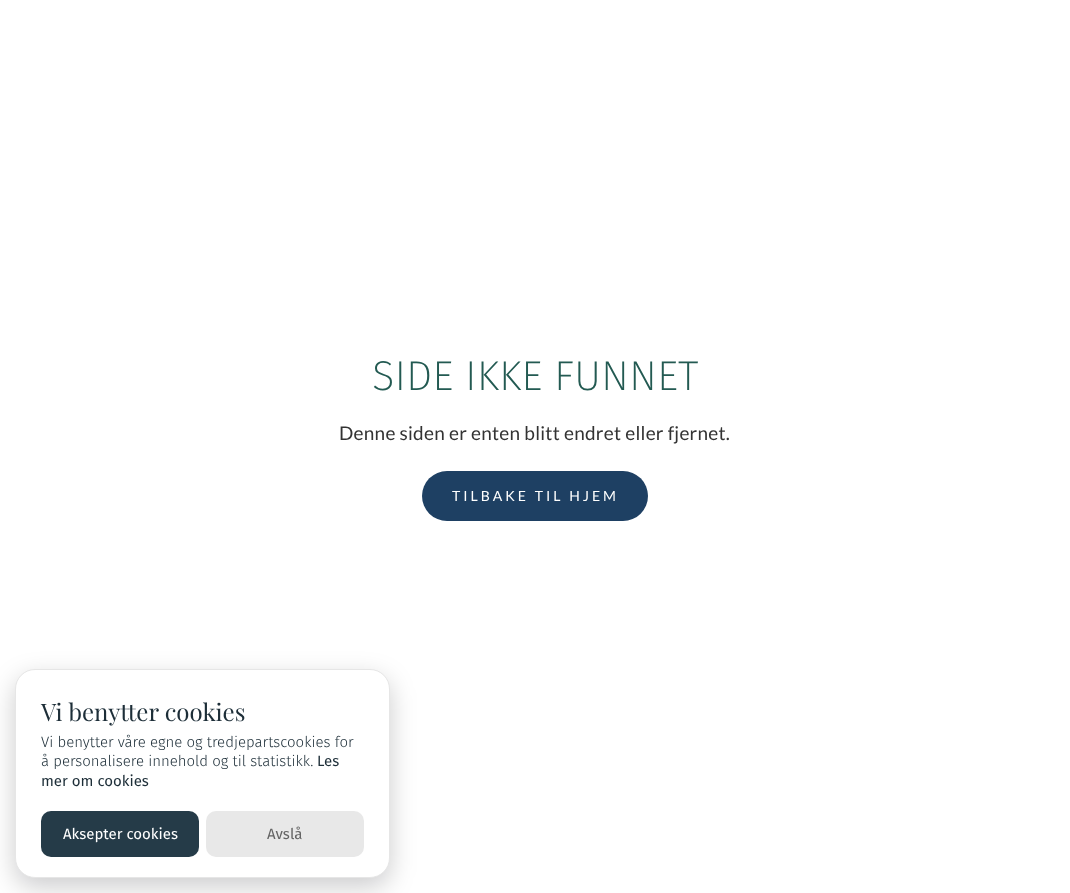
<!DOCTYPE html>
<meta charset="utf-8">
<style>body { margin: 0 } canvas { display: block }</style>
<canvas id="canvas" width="1070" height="893"></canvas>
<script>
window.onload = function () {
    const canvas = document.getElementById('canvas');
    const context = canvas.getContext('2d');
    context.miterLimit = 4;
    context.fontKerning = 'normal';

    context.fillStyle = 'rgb(255, 255, 255)';
    context.fillRect(0, 0, 1070, 893);
    context.fillStyle = 'rgb(30, 64, 99)';
    context.beginPath();
    context.roundRect(422, 471, 226, 50, 25);
    context.fill();
    context.fillStyle = 'rgba(2, 2, 3, 0.2)';
    context.filter = 'blur(13px)';
    context.beginPath();
    context.roundRect(15, 678, 375, 209, 20);
    context.fill();
    context.filter = 'none';
    context.fillStyle = 'rgb(255, 255, 255)';
    context.beginPath();
    context.roundRect(15.5, 669.5, 374, 208, 19.5);
    context.fill();
    context.strokeStyle = 'rgb(230, 230, 230)';
    context.stroke();
    context.fillStyle = 'rgb(37, 59, 72)';
    context.beginPath();
    context.roundRect(41, 811, 158, 46, 10);
    context.fill();
    context.fillStyle = 'rgb(232, 232, 232)';
    context.beginPath();
    context.roundRect(206, 811, 158, 46, 10);
    context.fill();
    context.font = '200 41.75px Fira Sans';
    context.fillStyle = 'rgb(35, 90, 82)';
    context.fillText('SIDE IKKE FUNNET', 372, 390);
    context.letterSpacing = '0.25px';
    context.font = '19px Lato';
    context.fillStyle = 'rgb(51, 51, 51)';
    context.fillText('Denne siden er enten blitt endret eller fjernet.', 339, 440);
    context.letterSpacing = '3px';
    context.font = '14px Lato';
    context.fillStyle = 'rgb(255, 255, 255)';
    context.fillText('TILBAKE TIL HJEM', 452, 501);
    context.letterSpacing = '0px';
    context.font = '24px Playfair Display';
    context.fillStyle = 'rgb(29, 46, 56)';
    context.fillText('Vi benytter cookies', 41, 721);
    context.font = '300 15px Fira Sans';
    context.fillText('Vi benytter våre egne og tredjepartscookies for', 41, 747);
    context.fillText('å personalisere innehold og til statistikk.', 41, 766);
    context.font = '15px Fira Sans';
    context.fillText('Les', 317, 766);
    context.fillText('mer om cookies', 41, 786);
    context.fillStyle = 'rgb(255, 255, 255)';
    context.fillText('Aksepter cookies', 63, 839);
    context.fillStyle = 'rgb(99, 99, 99)';
    context.fillText('Avslå', 267, 839);
};
</script>
